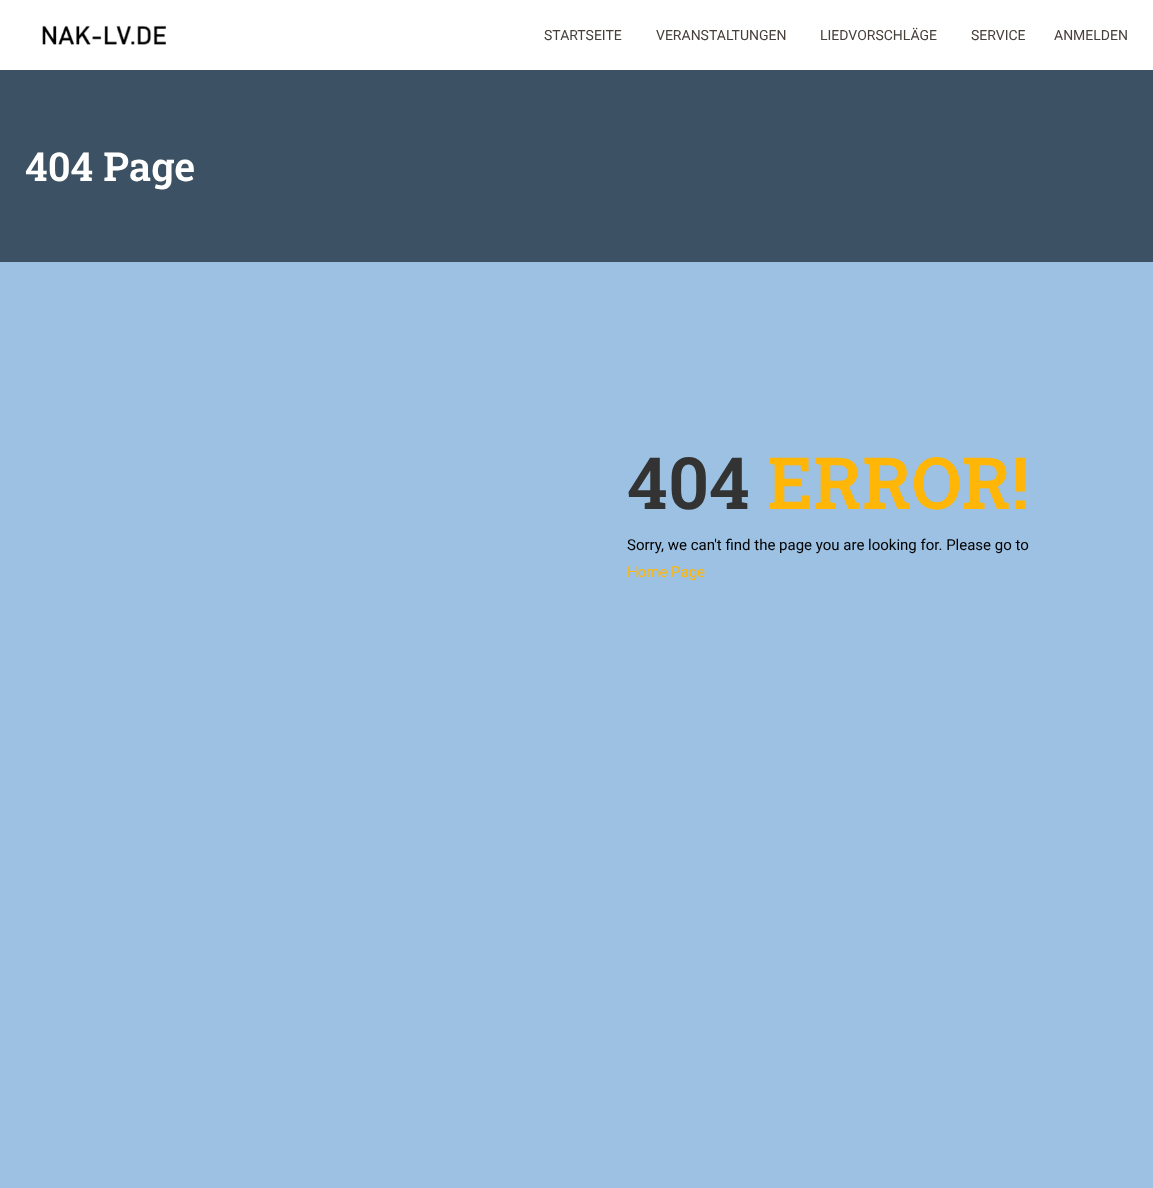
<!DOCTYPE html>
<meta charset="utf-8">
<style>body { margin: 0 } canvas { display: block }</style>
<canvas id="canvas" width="1153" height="1188"></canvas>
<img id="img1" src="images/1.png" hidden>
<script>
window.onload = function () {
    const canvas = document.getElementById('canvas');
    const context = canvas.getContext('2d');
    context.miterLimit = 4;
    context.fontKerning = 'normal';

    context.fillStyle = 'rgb(156, 193, 226)';
    context.fillRect(0, 0, 1153, 1188);
    context.fillStyle = 'rgb(255, 255, 255)';
    context.fillRect(0, 0, 1153, 70);
    context.drawImage(document.getElementById('img1'), 42, 25, 124, 20);
    context.fillStyle = 'rgb(60, 81, 99)';
    context.fillRect(0, 70, 1153, 192);
    context.font = '14px Roboto';
    context.fillStyle = 'rgb(70, 64, 59)';
    context.fillText('STARTSEITE', 544, 40);
    context.fillText('VERANSTALTUNGEN', 656, 40);
    context.fillText('LIEDVORSCHLÄGE', 820, 40);
    context.fillText('SERVICE', 971, 40);
    context.fillText('ANMELDEN', 1054, 40);
    context.font = '600 40px Roboto Slab';
    context.fillStyle = 'rgb(255, 255, 255)';
    context.fillText('404 Page', 25, 181);
    context.font = '600 72px Roboto Slab';
    context.fillStyle = 'rgb(51, 51, 51)';
    context.fillText('404', 627, 509);
    context.fillStyle = 'rgb(255, 182, 6)';
    context.fillText('ERROR!', 767, 509);
    context.font = '15px Roboto';
    context.fillStyle = 'rgb(0, 0, 0)';
    context.fillText('Sorry, we can\'t find the page you are looking for. Please go to', 627, 550);
    context.fillStyle = 'rgb(255, 182, 6)';
    context.fillText('Home Page', 627, 577);
};
</script>
